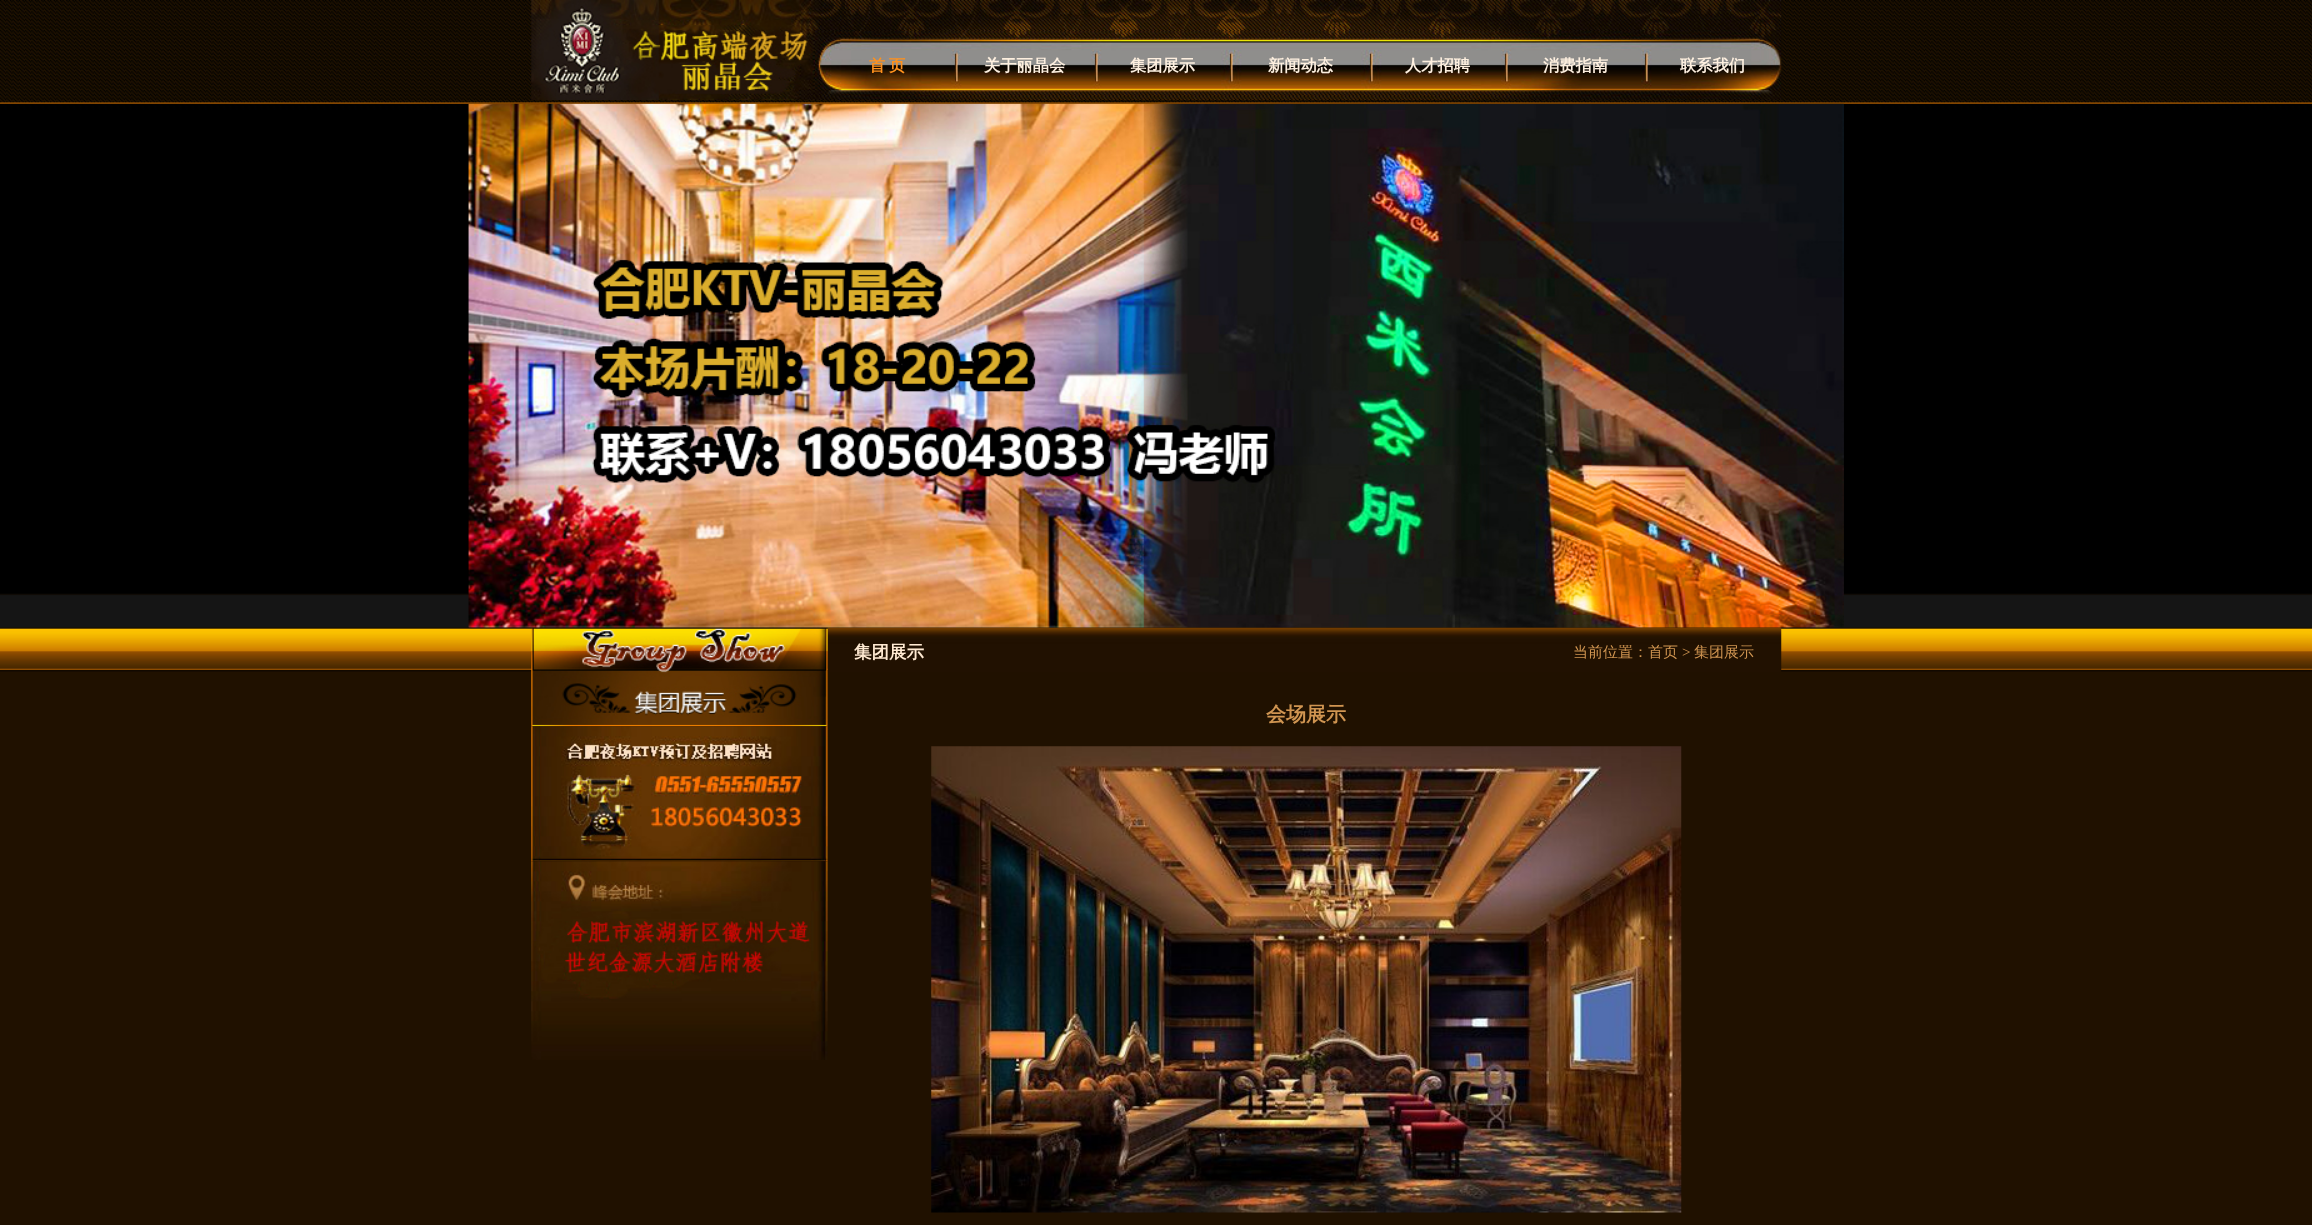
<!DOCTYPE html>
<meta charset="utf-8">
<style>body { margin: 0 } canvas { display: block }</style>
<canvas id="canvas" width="2312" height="1225"></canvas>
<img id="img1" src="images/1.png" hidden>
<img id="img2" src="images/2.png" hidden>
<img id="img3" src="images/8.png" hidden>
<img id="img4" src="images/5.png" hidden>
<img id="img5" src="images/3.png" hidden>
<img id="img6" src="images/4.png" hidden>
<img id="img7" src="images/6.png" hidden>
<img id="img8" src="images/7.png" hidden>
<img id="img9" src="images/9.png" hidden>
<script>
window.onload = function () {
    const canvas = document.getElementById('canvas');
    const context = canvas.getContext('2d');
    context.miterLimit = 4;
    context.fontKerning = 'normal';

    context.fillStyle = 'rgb(32, 17, 0)';
    context.fillRect(0, 0, 2312, 1225);
    context.drawImage(document.getElementById('img1'), 0, 0, 2312, 672);
    context.drawImage(document.getElementById('img2'), 531, 0, 1251, 100);
    context.drawImage(document.getElementById('img3'), 827, 627, 955, 45);
    context.drawImage(document.getElementById('img4'), 531, 627, 297, 100);
    context.drawImage(document.getElementById('img5'), 468, 103, 1376, 525);
    context.drawImage(document.getElementById('img6'), 468, 103, 1376, 525);
    context.drawImage(document.getElementById('img7'), 531, 726, 297, 136);
    context.drawImage(document.getElementById('img8'), 531, 861, 297, 199);
    context.drawImage(document.getElementById('img9'), 931, 746, 751, 467);
    context.wordSpacing = '-1px';
    context.font = 'bold 16.25px WenQuanYi Zen Hei';
    context.fillStyle = 'rgb(254, 145, 29)';
    context.fillText('首 页', 869, 71);
    context.wordSpacing = '0px';
    context.fillStyle = 'rgb(253, 239, 223)';
    context.fillText('关于丽晶会', 984, 71);
    context.fillText('集团展示', 1130, 71);
    context.fillText('新闻动态', 1268, 71);
    context.fillText('人才招聘', 1405, 71);
    context.fillText('消费指南', 1543, 71);
    context.fillText('联系我们', 1680, 71);
    context.font = 'bold 17.5px WenQuanYi Zen Hei';
    context.fillStyle = 'rgb(255, 234, 210)';
    context.fillText('集团展示', 854, 658);
    context.font = '500 15px WenQuanYi Zen Hei';
    context.fillStyle = 'rgb(208, 149, 81)';
    context.fillText('当前位置：首页', 1573, 657);
    context.font = '15px Liberation Serif';
    context.fillText('>', 1682, 657);
    context.font = '500 15px WenQuanYi Zen Hei';
    context.fillText('集团展示', 1694, 657);
    context.font = 'bold 20px WenQuanYi Zen Hei';
    context.fillText('会场展示', 1266, 721);
};
</script>
